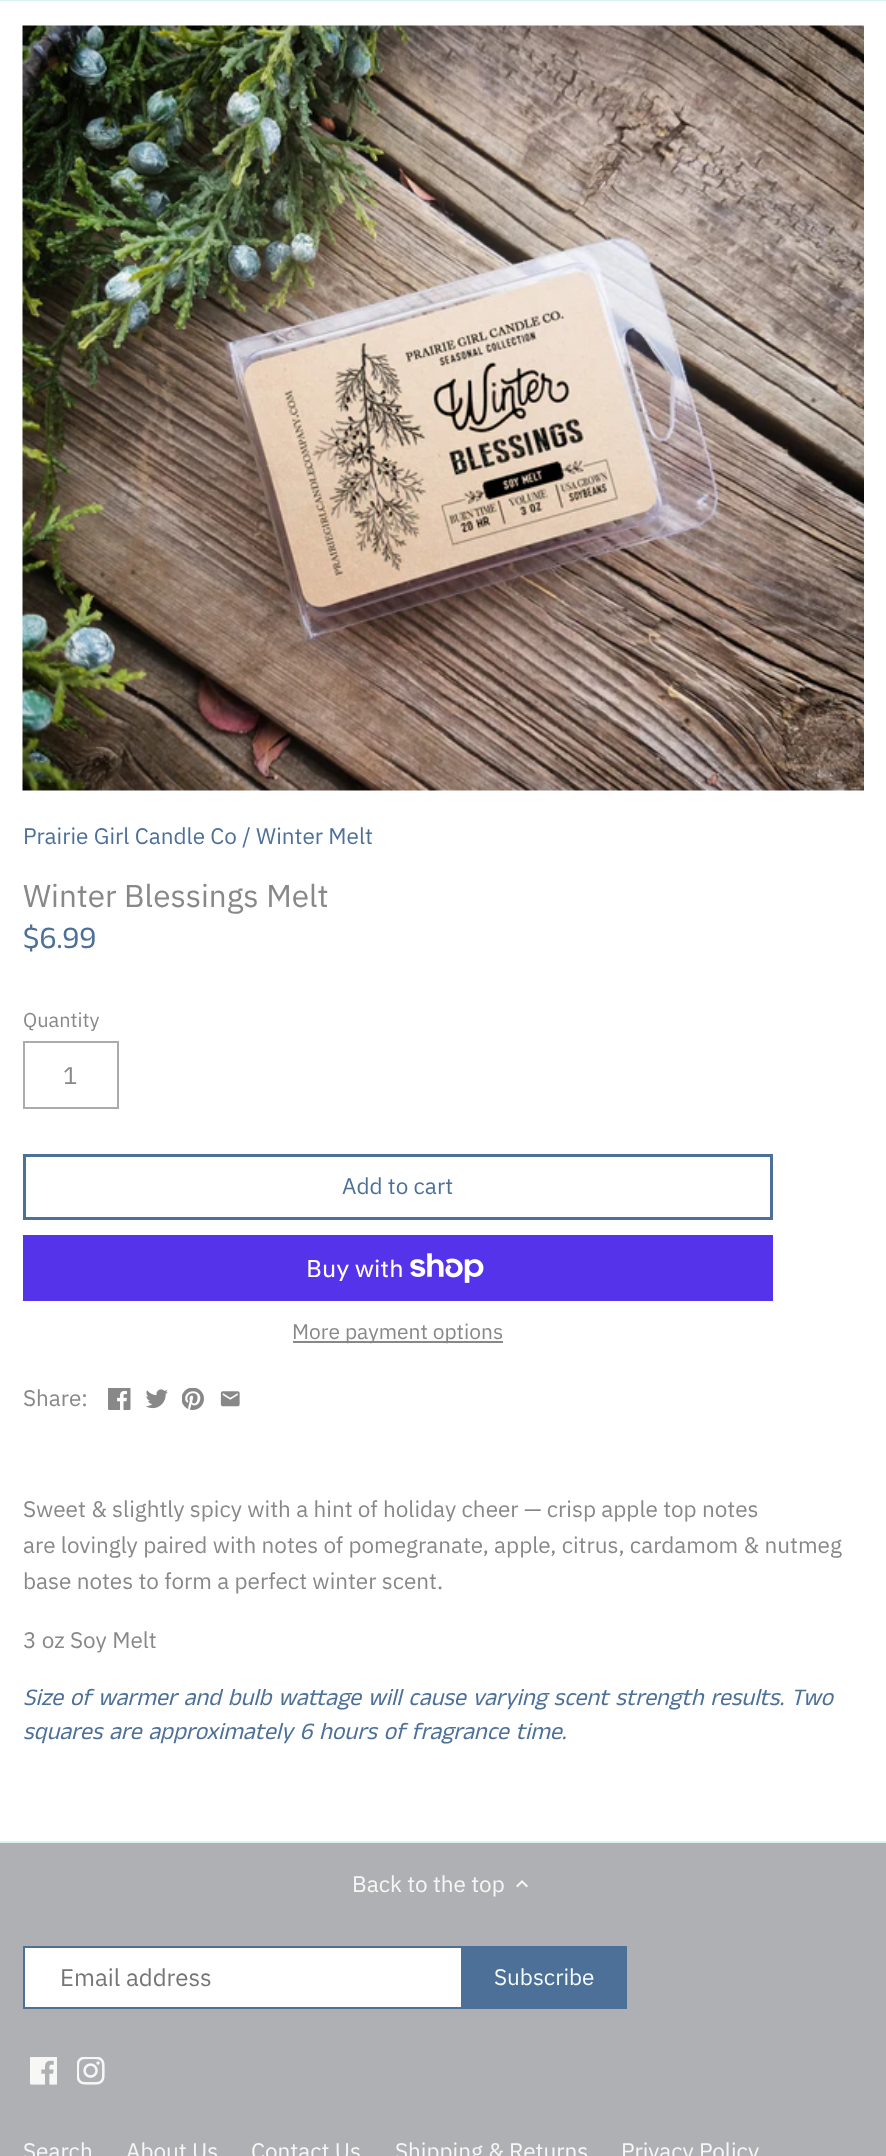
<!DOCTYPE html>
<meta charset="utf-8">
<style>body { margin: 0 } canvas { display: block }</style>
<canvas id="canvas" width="886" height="2156"></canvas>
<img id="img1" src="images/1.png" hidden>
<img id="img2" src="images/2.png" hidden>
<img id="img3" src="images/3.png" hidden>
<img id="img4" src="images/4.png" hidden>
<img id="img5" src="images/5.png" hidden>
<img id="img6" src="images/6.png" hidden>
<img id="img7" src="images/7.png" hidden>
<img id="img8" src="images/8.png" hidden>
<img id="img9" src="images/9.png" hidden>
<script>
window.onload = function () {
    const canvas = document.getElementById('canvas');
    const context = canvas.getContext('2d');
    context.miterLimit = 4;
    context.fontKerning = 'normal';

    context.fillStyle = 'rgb(175, 176, 180)';
    context.fillRect(0, 0, 886, 2156);
    context.fillStyle = 'rgb(255, 255, 255)';
    context.fillRect(0, 1, 886, 1840);
    context.fillStyle = 'rgb(216, 244, 245)';
    context.fillRect(0, 0, 886, 1);
    context.drawImage(document.getElementById('img1'), 22, 25, 842, 766);
    context.strokeStyle = 'rgb(171, 171, 171)';
    context.lineWidth = 2;
    context.strokeRect(24, 1042, 94, 66);
    context.strokeStyle = 'rgb(77, 112, 153)';
    context.lineWidth = 3;
    context.strokeRect(24.5, 1155.5, 747, 63);
    context.fillStyle = 'rgb(84, 51, 235)';
    context.fillRect(23, 1235, 750, 66);
    context.drawImage(document.getElementById('img2'), 410, 1253, 74, 30);
    context.fillStyle = 'rgb(136, 136, 136)';
    context.fillRect(293, 1341, 210, 2);
    context.drawImage(document.getElementById('img3'), 108, 1388, 23, 22);
    context.drawImage(document.getElementById('img4'), 146, 1389, 22, 20);
    context.drawImage(document.getElementById('img5'), 182, 1388, 22, 22);
    context.drawImage(document.getElementById('img6'), 220, 1391, 20, 16);
    context.fillStyle = 'rgb(216, 244, 245)';
    context.fillRect(0, 1841, 886, 2);
    context.drawImage(document.getElementById('img7'), 516, 1880, 12, 8);
    context.fillStyle = 'rgb(255, 255, 255)';
    context.fillRect(25, 1948, 436, 59);
    context.lineWidth = 2;
    context.strokeRect(24, 1947, 601, 61);
    context.fillStyle = 'rgb(77, 112, 153)';
    context.fillRect(461, 1946, 166, 63);
    context.drawImage(document.getElementById('img8'), 30, 2057, 27, 28);
    context.drawImage(document.getElementById('img9'), 77, 2057, 28, 28);
    context.font = '22.5px IBM Plex Sans';
    context.fillText('Prairie Girl Candle Co / Winter Melt', 23, 844);
    context.font = '31.5px IBM Plex Sans';
    context.fillStyle = 'rgb(136, 136, 136)';
    context.fillText('Winter Blessings Melt', 23, 907);
    context.font = '31.5px Anek Tamil';
    context.fillStyle = 'rgb(77, 112, 153)';
    context.fillText('$6.99', 23, 948);
    context.font = '20px IBM Plex Sans';
    context.fillStyle = 'rgb(136, 136, 136)';
    context.fillText('Quantity', 23, 1027);
    context.font = '24px IBM Plex Sans';
    context.fillText('1', 63, 1084);
    context.font = '22.5px IBM Plex Sans';
    context.fillStyle = 'rgb(77, 112, 153)';
    context.fillText('Add to cart', 342, 1194);
    context.font = '24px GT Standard';
    context.fillStyle = 'rgb(255, 255, 255)';
    context.fillText('Buy with', 306, 1277);
    context.font = '21px IBM Plex Sans';
    context.fillStyle = 'rgb(136, 136, 136)';
    context.fillText('More payment options', 292, 1339);
    context.font = '22.5px IBM Plex Sans';
    context.fillText('Share:', 23, 1406);
    context.fillText('Sweet & slightly spicy with a hint of holiday cheer — crisp apple top notes', 23, 1517);
    context.fillText('are lovingly paired with notes of pomegranate, apple, citrus, cardamom & nutmeg', 23, 1553);
    context.fillText('base notes to form a perfect winter scent.', 23, 1589);
    context.fillText('3 oz Soy Melt', 23, 1648);
    context.font = 'italic 24px Anek Tamil';
    context.fillStyle = 'rgb(77, 112, 153)';
    context.fillText('Size of warmer and bulb wattage will cause varying scent strength results. Two', 23, 1705);
    context.fillText('squares are approximately 6 hours of fragrance time.', 23, 1739);
    context.font = '22.5px IBM Plex Sans';
    context.fillStyle = 'rgb(247, 247, 245)';
    context.fillText('Back to the top', 352, 1892);
    context.font = '24px IBM Plex Sans';
    context.fillStyle = 'rgb(117, 117, 117)';
    context.fillText('Email address', 60, 1986);
    context.font = '22.5px IBM Plex Sans';
    context.fillStyle = 'rgb(244, 251, 252)';
    context.fillText('Subscribe', 494, 1985);
    context.fillStyle = 'rgb(247, 247, 245)';
    context.fillText('Search', 23, 2159);
    context.fillText('About Us', 126, 2159);
    context.fillText('Contact Us', 251, 2159);
    context.fillText('Shipping & Returns', 395, 2159);
    context.fillText('Privacy Policy', 621, 2159);
};
</script>
